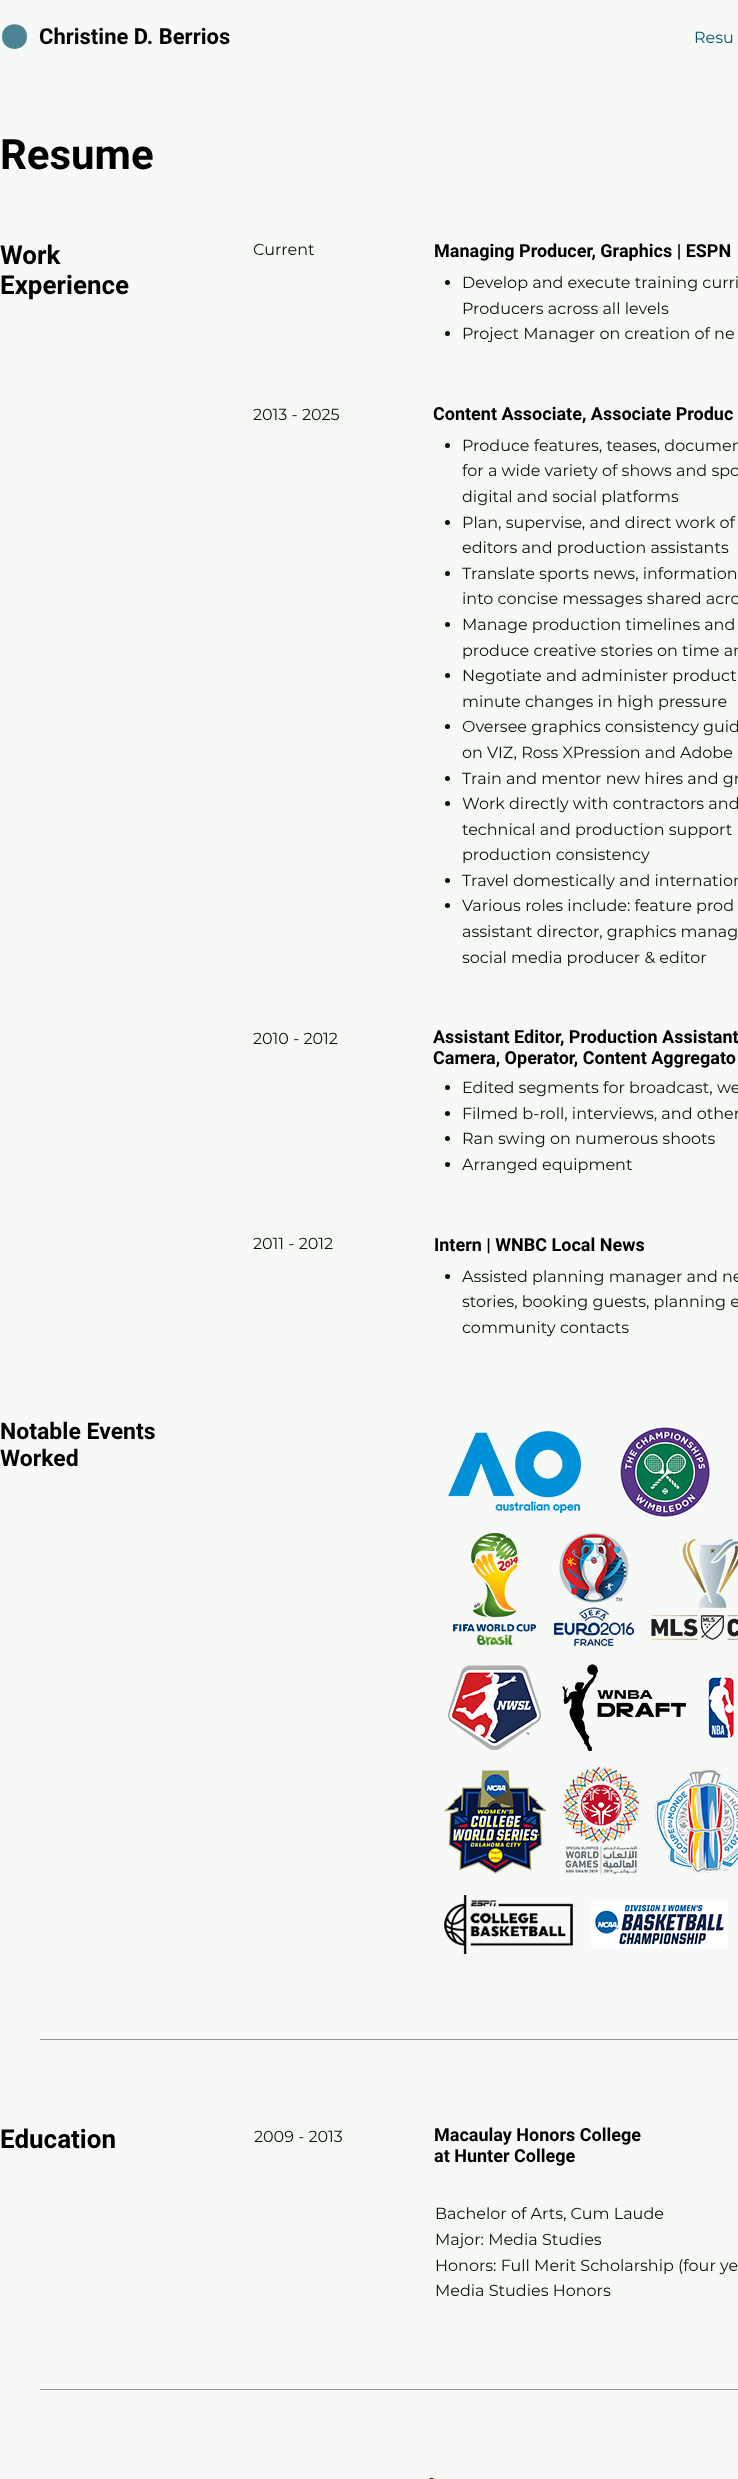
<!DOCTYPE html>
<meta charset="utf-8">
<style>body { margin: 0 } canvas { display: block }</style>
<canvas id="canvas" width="738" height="2479"></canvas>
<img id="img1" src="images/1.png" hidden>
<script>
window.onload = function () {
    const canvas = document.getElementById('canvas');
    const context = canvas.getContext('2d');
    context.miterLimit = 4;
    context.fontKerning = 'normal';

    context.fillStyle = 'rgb(246, 249, 245)';
    context.fillRect(0, 0, 738, 2479);
    context.fillStyle = 'rgb(77, 132, 149)';
    context.beginPath();
    context.moveTo(27, 36.5);
    context.bezierCurveTo(27, 53, 2, 53, 2, 36.5);
    context.bezierCurveTo(2, 20, 27, 20, 27, 36.5);
    context.closePath();
    context.fill();
    context.fillStyle = 'rgb(9, 20, 5)';
    context.beginPath();
    context.arc(447.5, 282.5, 2.5, 0, 2 * Math.PI);
    context.fill();
    context.beginPath();
    context.arc(447.5, 333.5, 2.5, 0, 2 * Math.PI);
    context.fill();
    context.beginPath();
    context.arc(447.5, 445.5, 2.5, 0, 2 * Math.PI);
    context.fill();
    context.beginPath();
    context.arc(447.5, 522.5, 2.5, 0, 2 * Math.PI);
    context.fill();
    context.beginPath();
    context.arc(447.5, 573.5, 2.5, 0, 2 * Math.PI);
    context.fill();
    context.beginPath();
    context.arc(447.5, 624.5, 2.5, 0, 2 * Math.PI);
    context.fill();
    context.beginPath();
    context.arc(447.5, 675.5, 2.5, 0, 2 * Math.PI);
    context.fill();
    context.beginPath();
    context.arc(447.5, 726.5, 2.5, 0, 2 * Math.PI);
    context.fill();
    context.beginPath();
    context.arc(447.5, 778.5, 2.5, 0, 2 * Math.PI);
    context.fill();
    context.beginPath();
    context.arc(447.5, 803.5, 2.5, 0, 2 * Math.PI);
    context.fill();
    context.beginPath();
    context.arc(447.5, 880.5, 2.5, 0, 2 * Math.PI);
    context.fill();
    context.beginPath();
    context.arc(447.5, 905.5, 2.5, 0, 2 * Math.PI);
    context.fill();
    context.beginPath();
    context.arc(447.5, 1087.5, 2.5, 0, 2 * Math.PI);
    context.fill();
    context.beginPath();
    context.arc(447.5, 1113.5, 2.5, 0, 2 * Math.PI);
    context.fill();
    context.beginPath();
    context.arc(447.5, 1138.5, 2.5, 0, 2 * Math.PI);
    context.fill();
    context.beginPath();
    context.arc(447.5, 1164.5, 2.5, 0, 2 * Math.PI);
    context.fill();
    context.beginPath();
    context.arc(447.5, 1276.5, 2.5, 0, 2 * Math.PI);
    context.fill();
    context.drawImage(document.getElementById('img1'), 444, 1426, 294, 528);
    context.fillStyle = 'rgb(148, 149, 147)';
    context.fillRect(40, 2039, 698, 1);
    context.fillRect(40, 2389, 698, 1);
    context.fillStyle = 'rgb(9, 20, 5)';
    context.beginPath();
    context.roundRect(429, 2478, 5, 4, 2.5);
    context.fill();
    context.font = 'bold 22px Roboto';
    context.fillStyle = 'rgb(0, 0, 0)';
    context.fillText('Christine D. Berrios', 39, 44);
    context.font = '16px Montserrat';
    context.fillStyle = 'rgb(3, 87, 114)';
    context.fillText('Resu', 694, 43);
    context.font = 'bold 42px Roboto';
    context.fillStyle = 'rgb(0, 0, 0)';
    context.fillText('Resume', 0, 169);
    context.font = 'bold 26px Roboto';
    context.fillText('Work', 0, 264);
    context.fillText('Experience', 0, 294);
    context.font = '16px Montserrat';
    context.fillStyle = 'rgb(9, 20, 5)';
    context.fillText('Current', 253, 255);
    context.font = 'bold 18px Roboto';
    context.fillStyle = 'rgb(0, 0, 0)';
    context.fillText('Managing Producer, Graphics | ESPN', 434, 257);
    context.font = '16px Montserrat';
    context.fillStyle = 'rgb(9, 20, 5)';
    context.fillText('Develop and execute training curri', 462, 288);
    context.fillText('Producers across all levels', 462, 314);
    context.fillText('Project Manager on creation of ne', 462, 339);
    context.fillText('2013 - 2025', 253, 420);
    context.font = 'bold 18px Roboto';
    context.fillStyle = 'rgb(0, 0, 0)';
    context.fillText('Content Associate, Associate Produc', 433, 420);
    context.font = '16px Montserrat';
    context.fillStyle = 'rgb(9, 20, 5)';
    context.fillText('Produce features, teases, documen', 462, 451);
    context.fillText('for a wide variety of shows and spo', 462, 476);
    context.fillText('digital and social platforms', 462, 502);
    context.fillText('Plan, supervise, and direct work of', 462, 528);
    context.fillText('editors and production assistants', 462, 553);
    context.fillText('Translate sports news, information', 462, 579);
    context.fillText('into concise messages shared acro', 462, 604);
    context.fillText('Manage production timelines and', 462, 630);
    context.fillText('produce creative stories on time an', 462, 656);
    context.fillText('Negotiate and administer product', 462, 681);
    context.fillText('minute changes in high pressure', 462, 707);
    context.fillText('Oversee graphics consistency guid', 462, 732);
    context.fillText('on VIZ, Ross XPression and Adobe', 462, 758);
    context.fillText('Train and mentor new hires and gr', 462, 784);
    context.fillText('Work directly with contractors and', 462, 809);
    context.fillText('technical and production support', 462, 835);
    context.fillText('production consistency', 462, 860);
    context.fillText('Travel domestically and internation', 462, 886);
    context.fillText('Various roles include: feature prod', 462, 911);
    context.fillText('assistant director, graphics manag', 462, 937);
    context.fillText('social media producer & editor', 462, 963);
    context.fillText('2010 - 2012', 253, 1044);
    context.font = 'bold 18px Roboto';
    context.fillStyle = 'rgb(0, 0, 0)';
    context.fillText('Assistant Editor, Production Assistant', 433, 1043);
    context.fillText('Camera, Operator, Content Aggregato', 433, 1064);
    context.font = '16px Montserrat';
    context.fillStyle = 'rgb(9, 20, 5)';
    context.fillText('Edited segments for broadcast, we', 462, 1093);
    context.fillText('Filmed b-roll, interviews, and other', 462, 1119);
    context.fillText('Ran swing on numerous shoots', 462, 1144);
    context.fillText('Arranged equipment', 462, 1170);
    context.fillText('2011 - 2012', 253, 1249);
    context.font = 'bold 18px Roboto';
    context.fillStyle = 'rgb(0, 0, 0)';
    context.fillText('Intern | WNBC Local News', 434, 1251);
    context.font = '16px Montserrat';
    context.fillStyle = 'rgb(9, 20, 5)';
    context.fillText('Assisted planning manager and ne', 462, 1282);
    context.fillText('stories, booking guests, planning e', 462, 1307);
    context.fillText('community contacts', 462, 1333);
    context.font = 'bold 23px Roboto';
    context.fillStyle = 'rgb(0, 0, 0)';
    context.fillText('Notable Events', 0, 1439);
    context.fillText('Worked', 0, 1466);
    context.font = 'bold 26px Roboto';
    context.fillText('Education', 0, 2148);
    context.font = '16px Montserrat';
    context.fillStyle = 'rgb(9, 20, 5)';
    context.fillText('2009 - 2013', 254, 2142);
    context.font = 'bold 18px Roboto';
    context.fillStyle = 'rgb(0, 0, 0)';
    context.fillText('Macaulay Honors College', 434, 2141);
    context.fillText('at Hunter College', 434, 2162);
    context.font = '16px Montserrat';
    context.fillStyle = 'rgb(9, 20, 5)';
    context.fillText('Bachelor of Arts, Cum Laude', 435, 2219);
    context.fillText('Major: Media Studies', 435, 2245);
    context.fillText('Honors: Full Merit Scholarship (four ye', 435, 2271);
    context.fillText('Media Studies Honors', 435, 2296);
};
</script>
